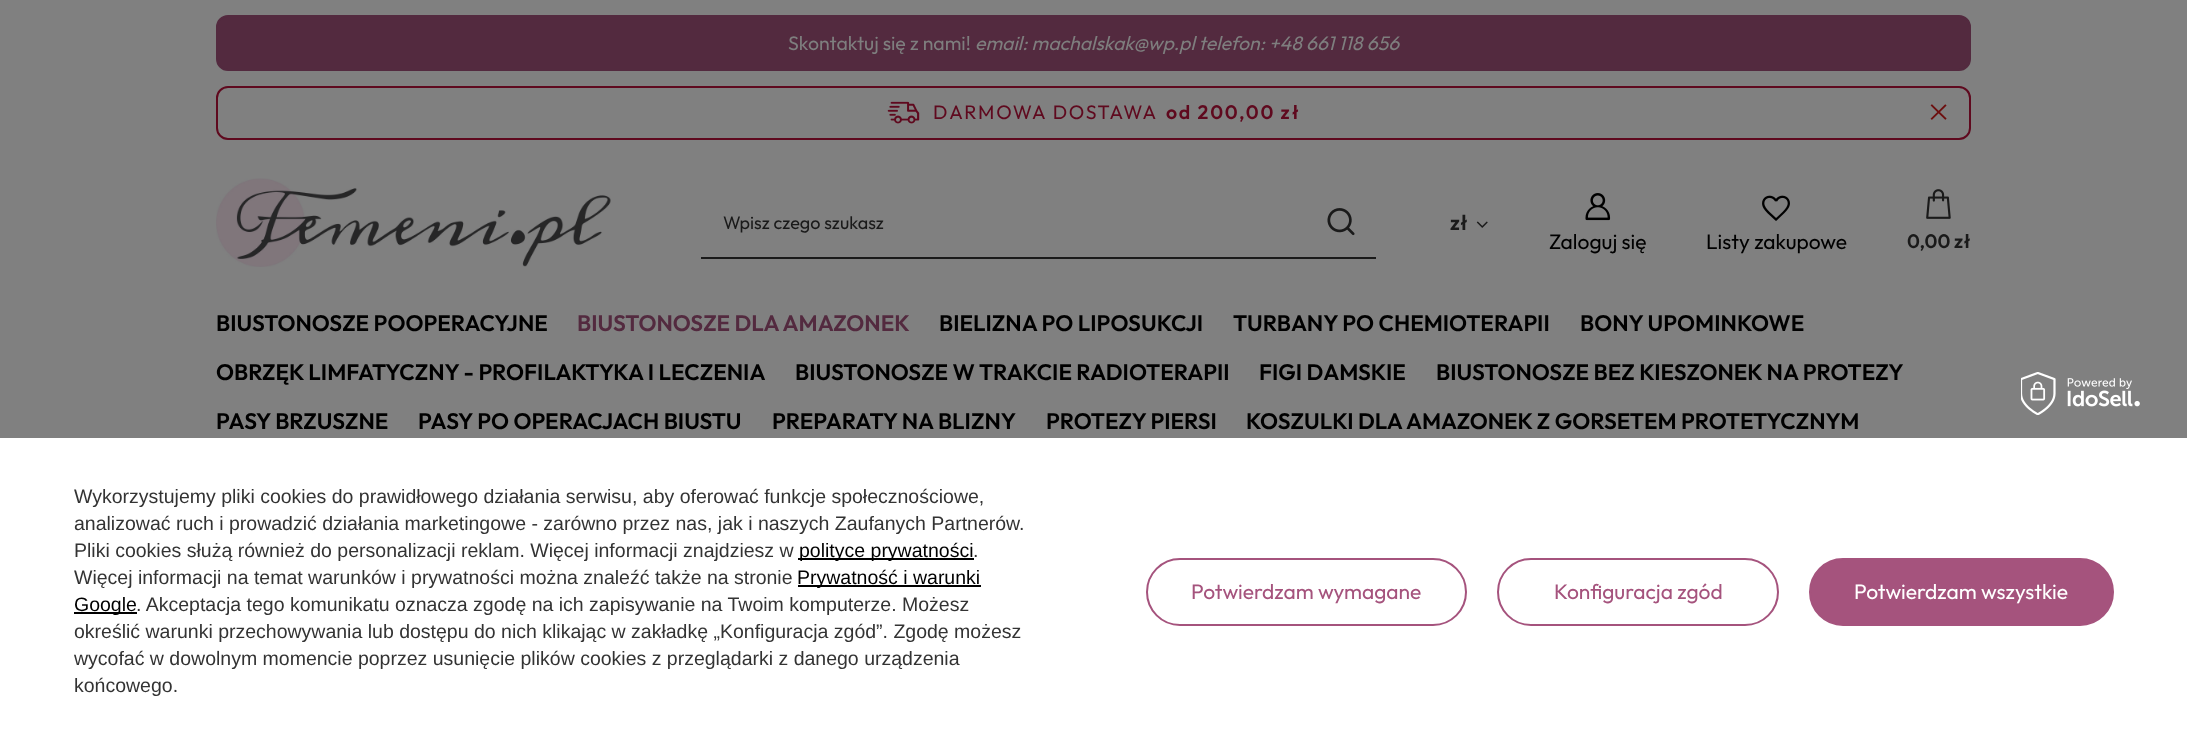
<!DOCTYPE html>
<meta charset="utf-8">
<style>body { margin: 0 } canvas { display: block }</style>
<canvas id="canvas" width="2187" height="743"></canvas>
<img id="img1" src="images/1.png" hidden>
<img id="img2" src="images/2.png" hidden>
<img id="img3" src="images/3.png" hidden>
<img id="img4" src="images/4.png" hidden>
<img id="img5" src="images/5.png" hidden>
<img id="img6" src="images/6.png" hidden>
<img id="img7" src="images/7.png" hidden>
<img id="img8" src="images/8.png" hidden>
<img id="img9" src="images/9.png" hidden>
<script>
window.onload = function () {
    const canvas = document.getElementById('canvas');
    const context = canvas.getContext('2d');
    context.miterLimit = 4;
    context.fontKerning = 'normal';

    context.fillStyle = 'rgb(128, 128, 128)';
    context.fillRect(0, 0, 2187, 743);
    context.fillStyle = 'rgb(83, 42, 63)';
    context.beginPath();
    context.roundRect(217, 16, 1753, 54, 11);
    context.fill();
    context.strokeStyle = 'rgb(83, 42, 63)';
    context.lineWidth = 2;
    context.stroke();
    context.beginPath();
    context.roundRect(217, 87, 1753, 52, 11);
    context.strokeStyle = 'rgb(95, 9, 30)';
    context.stroke();
    context.drawImage(document.getElementById('img1'), 887, 101, 33, 23);
    context.drawImage(document.getElementById('img2'), 1930, 104, 17, 16);
    context.drawImage(document.getElementById('img3'), 216, 178, 395, 89);
    context.fillStyle = 'rgb(26, 26, 26)';
    context.fillRect(701, 257, 675, 2);
    context.drawImage(document.getElementById('img4'), 1327, 208, 28, 28);
    context.drawImage(document.getElementById('img5'), 1476, 221, 12, 7);
    context.drawImage(document.getElementById('img6'), 1585, 193, 26, 28);
    context.drawImage(document.getElementById('img7'), 1762, 195, 28, 26);
    context.drawImage(document.getElementById('img8'), 1926, 189, 25, 30);
    context.fillStyle = 'rgb(255, 255, 255)';
    context.fillRect(0, 438, 2187, 305);
    context.drawImage(document.getElementById('img9'), 2021, 372, 119, 43);
    context.fillStyle = 'rgb(0, 0, 0)';
    context.fillRect(798, 558, 176, 2);
    context.fillRect(798, 585, 183, 2);
    context.fillRect(74, 612, 63, 2);
    context.beginPath();
    context.roundRect(1147, 559, 319, 66, 33);
    context.strokeStyle = 'rgb(165, 83, 125)';
    context.stroke();
    context.beginPath();
    context.roundRect(1498, 559, 280, 66, 33);
    context.stroke();
    context.fillStyle = 'rgb(165, 83, 125)';
    context.beginPath();
    context.roundRect(1810, 559, 303, 66, 33);
    context.fill();
    context.stroke();
    context.font = '19.5px Outfit';
    context.fillStyle = 'rgb(126, 126, 126)';
    context.fillText('Skontaktuj się z nami!', 788, 50);
    context.font = 'italic 19.5px Outfit';
    context.fillText('email: machalskak@wp.pl telefon: +48 661 118 656', 975, 50);
    context.letterSpacing = '1.75px';
    context.font = '19.5px Outfit';
    context.fillStyle = 'rgb(95, 9, 30)';
    context.fillText('DARMOWA DOSTAWA', 933, 119);
    context.font = '600 19.5px Outfit';
    context.fillText('od 200,00 zł', 1166, 119);
    context.letterSpacing = '0px';
    context.font = '18px Outfit';
    context.fillStyle = 'rgb(26, 26, 26)';
    context.fillText('Wpisz czego szukasz', 723, 229);
    context.font = '600 21px Outfit';
    context.fillText('zł', 1450, 230);
    context.font = '21px Outfit';
    context.fillStyle = 'rgb(0, 0, 0)';
    context.fillText('Zaloguj się', 1549, 249);
    context.fillText('Listy zakupowe', 1706, 249);
    context.font = '600 19.5px Outfit';
    context.fillStyle = 'rgb(26, 26, 26)';
    context.fillText('0,00 zł', 1907, 248);
    context.font = '600 22.5px Outfit';
    context.fillStyle = 'rgb(0, 0, 0)';
    context.fillText('BIUSTONOSZE POOPERACYJNE', 216, 331);
    context.fillStyle = 'rgb(83, 42, 63)';
    context.fillText('BIUSTONOSZE DLA AMAZONEK', 577, 331);
    context.fillStyle = 'rgb(0, 0, 0)';
    context.fillText('BIELIZNA PO LIPOSUKCJI', 939, 331);
    context.fillText('TURBANY PO CHEMIOTERAPII', 1233, 331);
    context.fillText('BONY UPOMINKOWE', 1580, 331);
    context.fillText('OBRZĘK LIMFATYCZNY - PROFILAKTYKA I LECZENIA', 216, 380);
    context.fillText('BIUSTONOSZE W TRAKCIE RADIOTERAPII', 795, 380);
    context.fillText('FIGI DAMSKIE', 1259, 380);
    context.fillText('BIUSTONOSZE BEZ KIESZONEK NA PROTEZY', 1436, 380);
    context.fillText('PASY BRZUSZNE', 216, 429);
    context.fillText('PASY PO OPERACJACH BIUSTU', 418, 429);
    context.fillText('PREPARATY NA BLIZNY', 772, 429);
    context.fillText('PROTEZY PIERSI', 1046, 429);
    context.fillText('KOSZULKI DLA AMAZONEK Z GORSETEM PROTETYCZNYM', 1246, 429);
    context.font = '19.5px Liberation Sans';
    context.fillStyle = 'rgb(51, 51, 51)';
    context.fillText('Wykorzystujemy pliki cookies do prawidłowego działania serwisu, aby oferować funkcje społecznościowe,', 74, 503);
    context.fillText('analizować ruch i prowadzić działania marketingowe - zarówno przez nas, jak i naszych Zaufanych Partnerów.', 74, 530);
    context.fillText('Pliki cookies służą również do personalizacji reklam. Więcej informacji znajdziesz w', 74, 557);
    context.fillStyle = 'rgb(0, 0, 0)';
    context.fillText('polityce prywatności', 799, 557);
    context.fillStyle = 'rgb(51, 51, 51)';
    context.fillText('.', 973, 557);
    context.fillText('Więcej informacji na temat warunków i prywatności można znaleźć także na stronie', 74, 584);
    context.fillStyle = 'rgb(0, 0, 0)';
    context.fillText('Prywatność i warunki', 797, 584);
    context.fillText('Google', 74, 611);
    context.fillStyle = 'rgb(51, 51, 51)';
    context.fillText('. Akceptacja tego komunikatu oznacza zgodę na ich zapisywanie na Twoim komputerze. Możesz', 136, 611);
    context.fillText('określić warunki przechowywania lub dostępu do nich klikając w zakładkę „Konfiguracja zgód”. Zgodę możesz', 74, 638);
    context.fillText('wycofać w dowolnym momencie poprzez usunięcie plików cookies z przeglądarki z danego urządzenia', 74, 665);
    context.fillText('końcowego.', 74, 692);
    context.font = '21px Outfit';
    context.fillStyle = 'rgb(165, 83, 125)';
    context.fillText('Potwierdzam wymagane', 1191, 599);
    context.fillText('Konfiguracja zgód', 1554, 599);
    context.fillStyle = 'rgb(255, 255, 255)';
    context.fillText('Potwierdzam wszystkie', 1854, 599);
};
</script>
